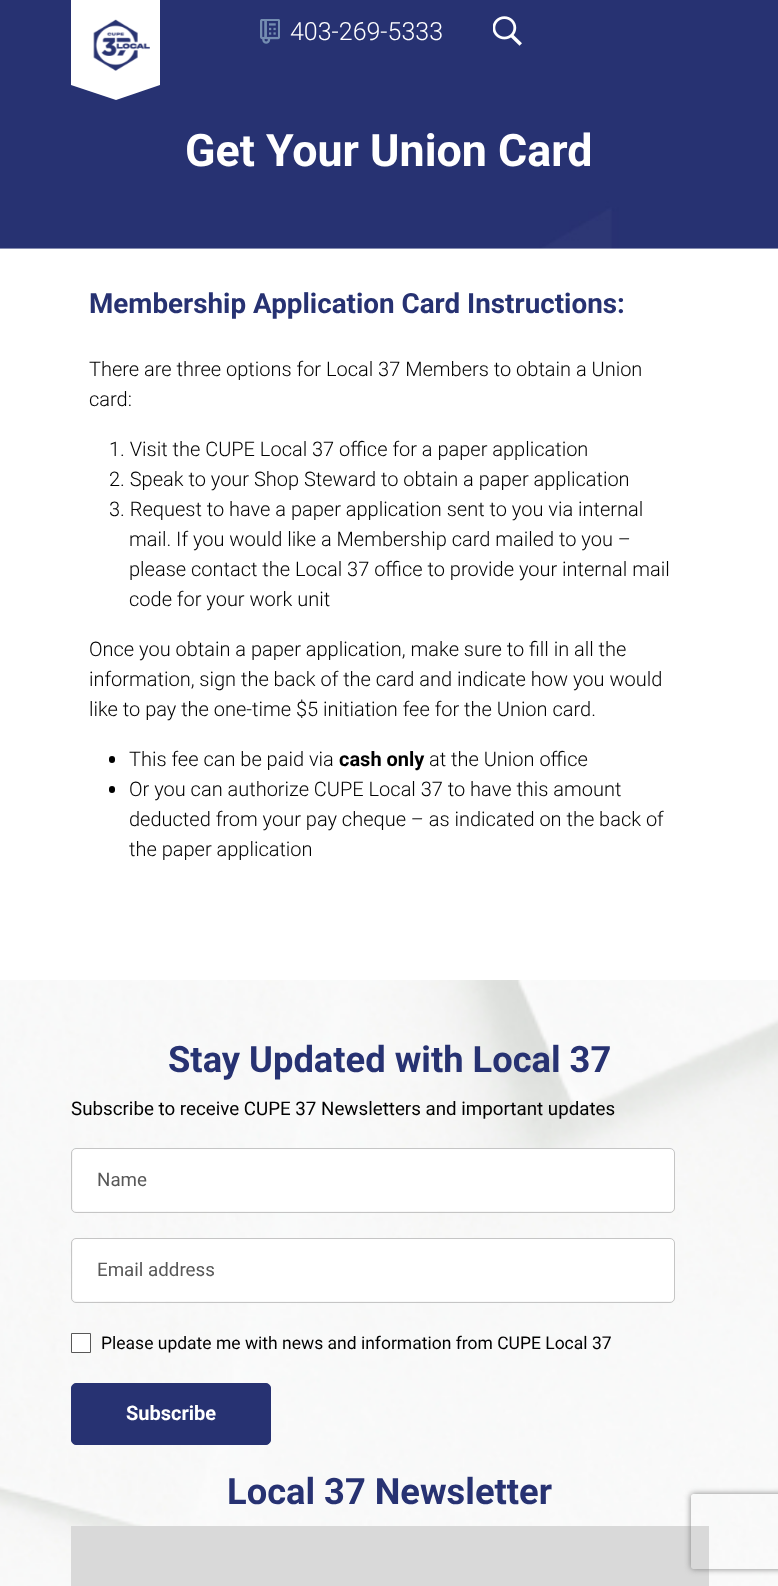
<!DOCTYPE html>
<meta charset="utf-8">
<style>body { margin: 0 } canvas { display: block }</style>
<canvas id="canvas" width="778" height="1586"></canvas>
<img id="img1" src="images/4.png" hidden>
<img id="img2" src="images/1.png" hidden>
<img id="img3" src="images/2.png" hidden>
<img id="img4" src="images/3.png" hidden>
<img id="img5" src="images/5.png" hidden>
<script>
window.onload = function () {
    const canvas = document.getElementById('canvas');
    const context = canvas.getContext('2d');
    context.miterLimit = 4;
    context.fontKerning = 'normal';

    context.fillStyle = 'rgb(255, 255, 255)';
    context.fillRect(0, 0, 778, 1586);
    context.drawImage(document.getElementById('img1'), 0, 0, 778, 249);
    context.beginPath();
    context.moveTo(71, -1);
    context.lineTo(160, -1);
    context.lineTo(160, 85);
    context.lineTo(116, 100);
    context.lineTo(71, 85);
    context.closePath();
    context.fill();
    context.drawImage(document.getElementById('img2'), 93, 19, 57, 52);
    context.drawImage(document.getElementById('img3'), 260, 19, 20, 25);
    context.drawImage(document.getElementById('img4'), 493, 16, 29, 30);
    context.fillStyle = 'rgb(0, 0, 0)';
    context.beginPath();
    context.roundRect(109, 756, 6, 7, 3);
    context.fill();
    context.beginPath();
    context.roundRect(109, 786, 6, 7, 3);
    context.fill();
    context.drawImage(document.getElementById('img5'), 0, 980, 778, 606);
    context.fillStyle = 'rgb(255, 255, 255)';
    context.beginPath();
    context.roundRect(73, 1149, 601, 62, 4);
    context.fill();
    context.beginPath();
    context.roundRect(71.5, 1148.5, 603, 64, 4.5);
    context.strokeStyle = 'rgb(197, 197, 197)';
    context.stroke();
    context.beginPath();
    context.roundRect(73, 1239, 601, 62, 4);
    context.fill();
    context.beginPath();
    context.roundRect(71.5, 1238.5, 603, 64, 4.5);
    context.stroke();
    context.beginPath();
    context.rect(71.5, 1333.5, 19, 19);
    context.fill();
    context.strokeStyle = 'rgb(88, 88, 88)';
    context.stroke();
    context.fillStyle = 'rgb(39, 50, 114)';
    context.beginPath();
    context.roundRect(71.5, 1383.5, 199, 61, 4.5);
    context.fill();
    context.strokeStyle = 'rgb(39, 50, 114)';
    context.stroke();
    context.fillStyle = 'rgb(217, 217, 217)';
    context.fillRect(71, 1526, 638, 60);
    context.save();
    context.beginPath();
    context.moveTo(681, 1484);
    context.lineTo(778, 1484);
    context.lineTo(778, 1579);
    context.lineTo(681, 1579);
    context.closePath();
    context.moveTo(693.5, 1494);
    context.lineTo(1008.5, 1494);
    context.bezierCurveTo(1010, 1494, 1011, 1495, 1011, 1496.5);
    context.lineTo(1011, 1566.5);
    context.bezierCurveTo(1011, 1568, 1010, 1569, 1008.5, 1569);
    context.lineTo(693.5, 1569);
    context.bezierCurveTo(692, 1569, 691, 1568, 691, 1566.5);
    context.lineTo(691, 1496.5);
    context.bezierCurveTo(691, 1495, 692, 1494, 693.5, 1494);
    context.closePath();
    context.clip('evenodd');
    context.fillStyle = 'rgb(128, 128, 128)';
    context.filter = 'blur(3px)';
    context.beginPath();
    context.roundRect(691, 1494, 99, 75, 2.5);
    context.fill();
    context.filter = 'none';
    context.restore();
    context.font = '300 25px Roboto';
    context.fillStyle = 'rgb(255, 255, 255)';
    context.fillText('403-269-5333', 290, 40);
    context.font = 'bold 44.75px Roboto';
    context.fillText('Get Your Union Card', 185, 166);
    context.font = 'bold 27.8px Roboto';
    context.fillStyle = 'rgb(39, 50, 114)';
    context.fillText('Membership Application Card Instructions:', 89, 313);
    context.font = '300 20px Roboto';
    context.fillStyle = 'rgb(0, 0, 0)';
    context.fillText('There are three options for Local 37 Members to obtain a Union', 89, 376);
    context.fillText('card:', 89, 406);
    context.fillText('1. Visit the CUPE Local 37 office for a paper application', 109, 456);
    context.fillText('2. Speak to your Shop Steward to obtain a paper application', 109, 486);
    context.fillText('3. Request to have a paper application sent to you via internal', 109, 516);
    context.fillText('mail. If you would like a Membership card mailed to you –', 129, 546);
    context.fillText('please contact the Local 37 office to provide your internal mail', 129, 576);
    context.fillText('code for your work unit', 129, 606);
    context.fillText('Once you obtain a paper application, make sure to fill in all the', 89, 656);
    context.fillText('information, sign the back of the card and indicate how you would', 89, 686);
    context.fillText('like to pay the one-time $5 initiation fee for the Union card.', 89, 716);
    context.fillText('This fee can be paid via', 129, 766);
    context.font = 'bold 20px Roboto';
    context.fillText('cash only', 339, 766);
    context.font = '300 20px Roboto';
    context.fillText('at the Union office', 429, 766);
    context.fillText('Or you can authorize CUPE Local 37 to have this amount', 129, 796);
    context.fillText('deducted from your pay cheque – as indicated on the back of', 129, 826);
    context.fillText('the paper application', 129, 856);
    context.font = 'bold 36.3px Roboto';
    context.fillStyle = 'rgb(39, 50, 114)';
    context.fillText('Stay Updated with Local 37', 168, 1072);
    context.font = '18.75px Roboto';
    context.fillStyle = 'rgb(0, 0, 0)';
    context.fillText('Subscribe to receive CUPE 37 Newsletters and important updates', 71, 1115);
    context.fillStyle = 'rgb(88, 88, 88)';
    context.fillText('Name', 97, 1186);
    context.fillText('Email address', 97, 1276);
    context.font = '17.5px Roboto';
    context.fillStyle = 'rgb(0, 0, 0)';
    context.fillText('Please update me with news and information from CUPE Local 37', 101, 1349);
    context.font = 'bold 20px Roboto';
    context.fillStyle = 'rgb(255, 255, 255)';
    context.fillText('Subscribe', 126, 1420);
    context.font = 'bold 36.3px Roboto';
    context.fillStyle = 'rgb(39, 50, 114)';
    context.fillText('Local 37 Newsletter', 227, 1504);
};
</script>
